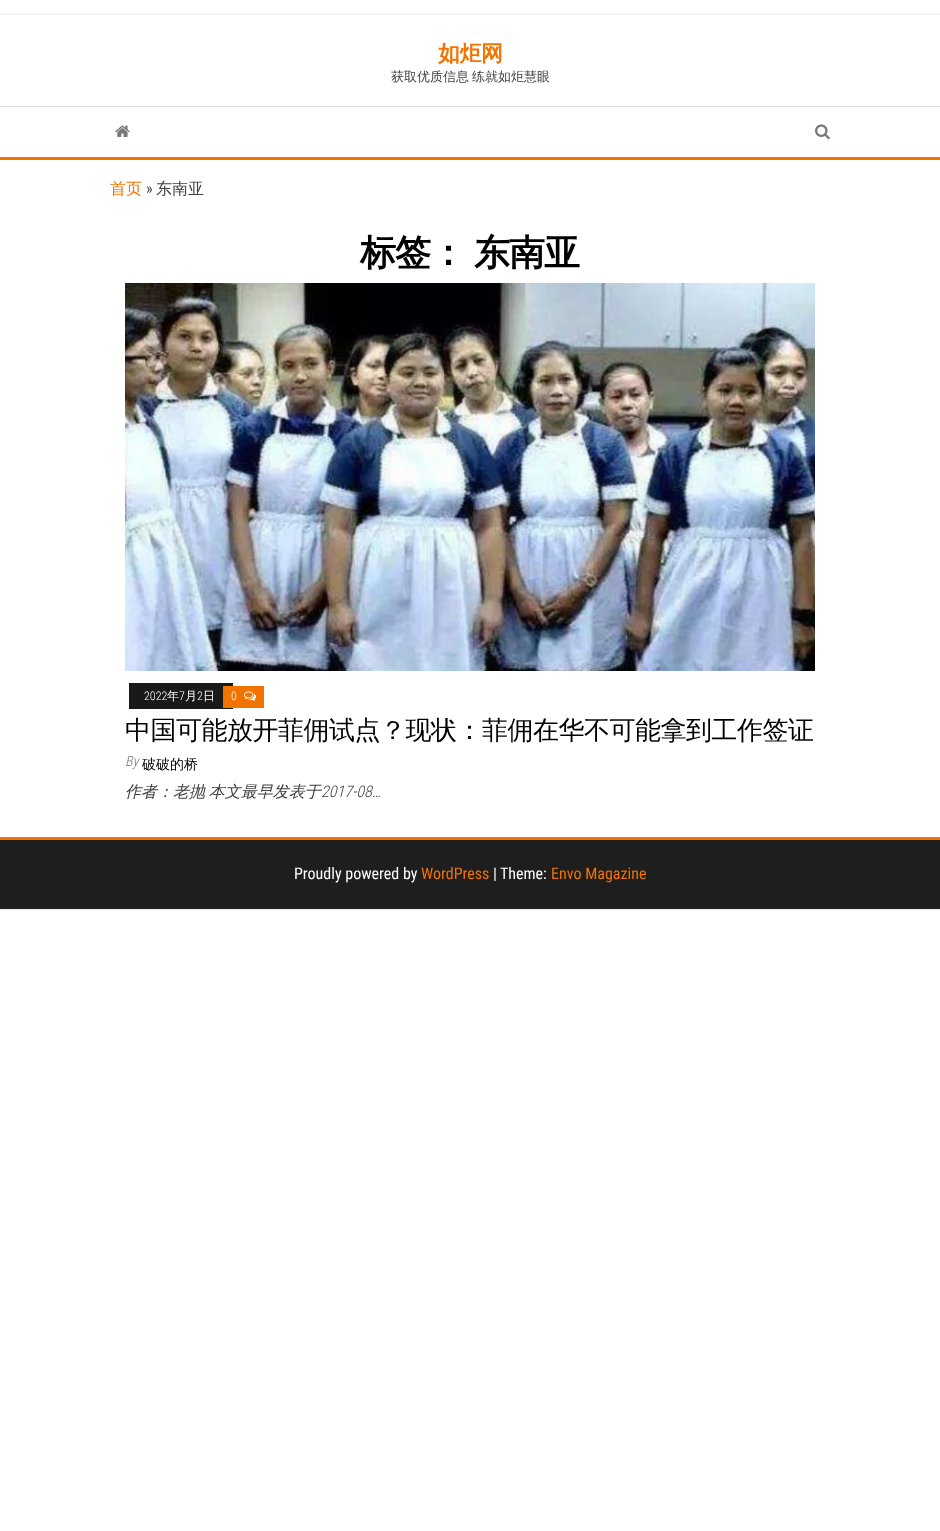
<!DOCTYPE html>
<meta charset="utf-8">
<style>body { margin: 0 } canvas { display: block }</style>
<canvas id="canvas" width="940" height="1531"></canvas>
<img id="img1" src="images/1.png" hidden>
<img id="img2" src="images/2.png" hidden>
<img id="img3" src="images/3.png" hidden>
<img id="img4" src="images/4.png" hidden>
<script>
window.onload = function () {
    const canvas = document.getElementById('canvas');
    const context = canvas.getContext('2d');
    context.miterLimit = 4;
    context.fontKerning = 'normal';

    context.fillStyle = 'rgb(255, 255, 255)';
    context.fillRect(0, 0, 940, 1531);
    context.save();
    context.beginPath();
    context.moveTo(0, 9);
    context.lineTo(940, 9);
    context.lineTo(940, 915);
    context.lineTo(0, 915);
    context.closePath();
    context.moveTo(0, 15);
    context.lineTo(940, 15);
    context.lineTo(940, 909);
    context.lineTo(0, 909);
    context.closePath();
    context.clip('evenodd');
    context.fillStyle = 'rgb(202, 202, 202)';
    context.filter = 'blur(1.5px)';
    context.beginPath();
    context.rect(0, 15, 940, 894);
    context.fill();
    context.filter = 'none';
    context.restore();
    context.fillStyle = 'rgb(221, 221, 221)';
    context.fillRect(0, 106, 940, 1);
    context.fillStyle = 'rgb(242, 115, 0)';
    context.fillRect(0, 157, 940, 3);
    context.drawImage(document.getElementById('img1'), 115, 125, 15, 12);
    context.drawImage(document.getElementById('img2'), 815, 124, 15, 16);
    context.drawImage(document.getElementById('img3'), 125, 283, 690, 388);
    context.fillStyle = 'rgb(25, 25, 25)';
    context.fillRect(129, 683, 104, 26);
    context.fillStyle = 'rgb(242, 115, 0)';
    context.fillRect(223, 686, 41, 22);
    context.drawImage(document.getElementById('img4'), 244, 691, 12, 10);
    context.fillStyle = 'rgb(30, 30, 30)';
    context.fillRect(0, 840, 940, 69);
    context.fillStyle = 'rgb(242, 115, 0)';
    context.fillRect(0, 837, 940, 3);
    context.letterSpacing = '-0.5px';
    context.font = 'bold 22px WenQuanYi Zen Hei';
    context.fillText('如炬网', 438, 61);
    context.letterSpacing = '0px';
    context.wordSpacing = '-1px';
    context.font = '500 13px WenQuanYi Zen Hei';
    context.fillStyle = 'rgb(64, 64, 64)';
    context.fillText('获取优质信息 练就如炬慧眼', 391, 81);
    context.wordSpacing = '0px';
    context.font = '500 16px WenQuanYi Zen Hei';
    context.fillStyle = 'rgb(242, 115, 0)';
    context.fillText('首页', 110, 194);
    context.font = '16px Roboto Condensed';
    context.fillStyle = 'rgb(64, 64, 64)';
    context.fillText('»', 146, 194);
    context.font = '500 16px WenQuanYi Zen Hei';
    context.fillText('东南亚', 156, 194);
    context.letterSpacing = '-1px';
    context.font = 'bold 36px WenQuanYi Zen Hei';
    context.fillStyle = 'rgb(0, 0, 0)';
    context.fillText('标签：', 360, 265);
    context.fillText('东南亚', 474, 265);
    context.letterSpacing = '0px';
    context.font = '300 12px Roboto Condensed';
    context.fillStyle = 'rgb(255, 255, 255)';
    context.fillText('2022', 144, 700);
    context.font = '500 12px WenQuanYi Zen Hei';
    context.fillText('年', 167, 700);
    context.font = '300 12px Roboto Condensed';
    context.fillText('7', 179, 700);
    context.font = '500 12px WenQuanYi Zen Hei';
    context.fillText('月', 185, 700);
    context.font = '300 12px Roboto Condensed';
    context.fillText('2', 197, 700);
    context.font = '500 12px WenQuanYi Zen Hei';
    context.fillText('日', 203, 700);
    context.font = '300 12px Roboto Condensed';
    context.fillText('0', 231, 700);
    context.letterSpacing = '-0.5px';
    context.font = '500 26px WenQuanYi Zen Hei';
    context.fillStyle = 'rgb(0, 0, 0)';
    context.fillText('中国可能放开菲佣试点？现状：菲佣在华不可能拿到工作签证', 125, 739);
    context.letterSpacing = '0px';
    context.font = 'italic 300 14px Roboto Condensed';
    context.fillStyle = 'rgb(121, 121, 121)';
    context.fillText('By', 125, 766);
    context.font = '500 14px WenQuanYi Zen Hei';
    context.fillStyle = 'rgb(0, 0, 0)';
    context.fillText('破破的桥', 142, 769);
    context.wordSpacing = '-1px';
    context.font = 'italic 500 16px WenQuanYi Zen Hei';
    context.fillStyle = 'rgb(64, 64, 64)';
    context.fillText('作者：老抛 本文最早发表于', 125, 797);
    context.wordSpacing = '0px';
    context.font = 'italic 300 16px Roboto Condensed';
    context.fillText('2017-08…', 321, 797);
    context.font = '16px Roboto Condensed';
    context.fillStyle = 'rgb(255, 255, 255)';
    context.fillText('Proudly powered by', 294, 879);
    context.fillStyle = 'rgb(242, 115, 0)';
    context.fillText('WordPress', 421, 879);
    context.fillStyle = 'rgb(255, 255, 255)';
    context.fillText('|', 493, 879);
    context.fillText('Theme:', 500, 879);
    context.fillStyle = 'rgb(242, 115, 0)';
    context.fillText('Envo Magazine', 551, 879);
};
</script>
